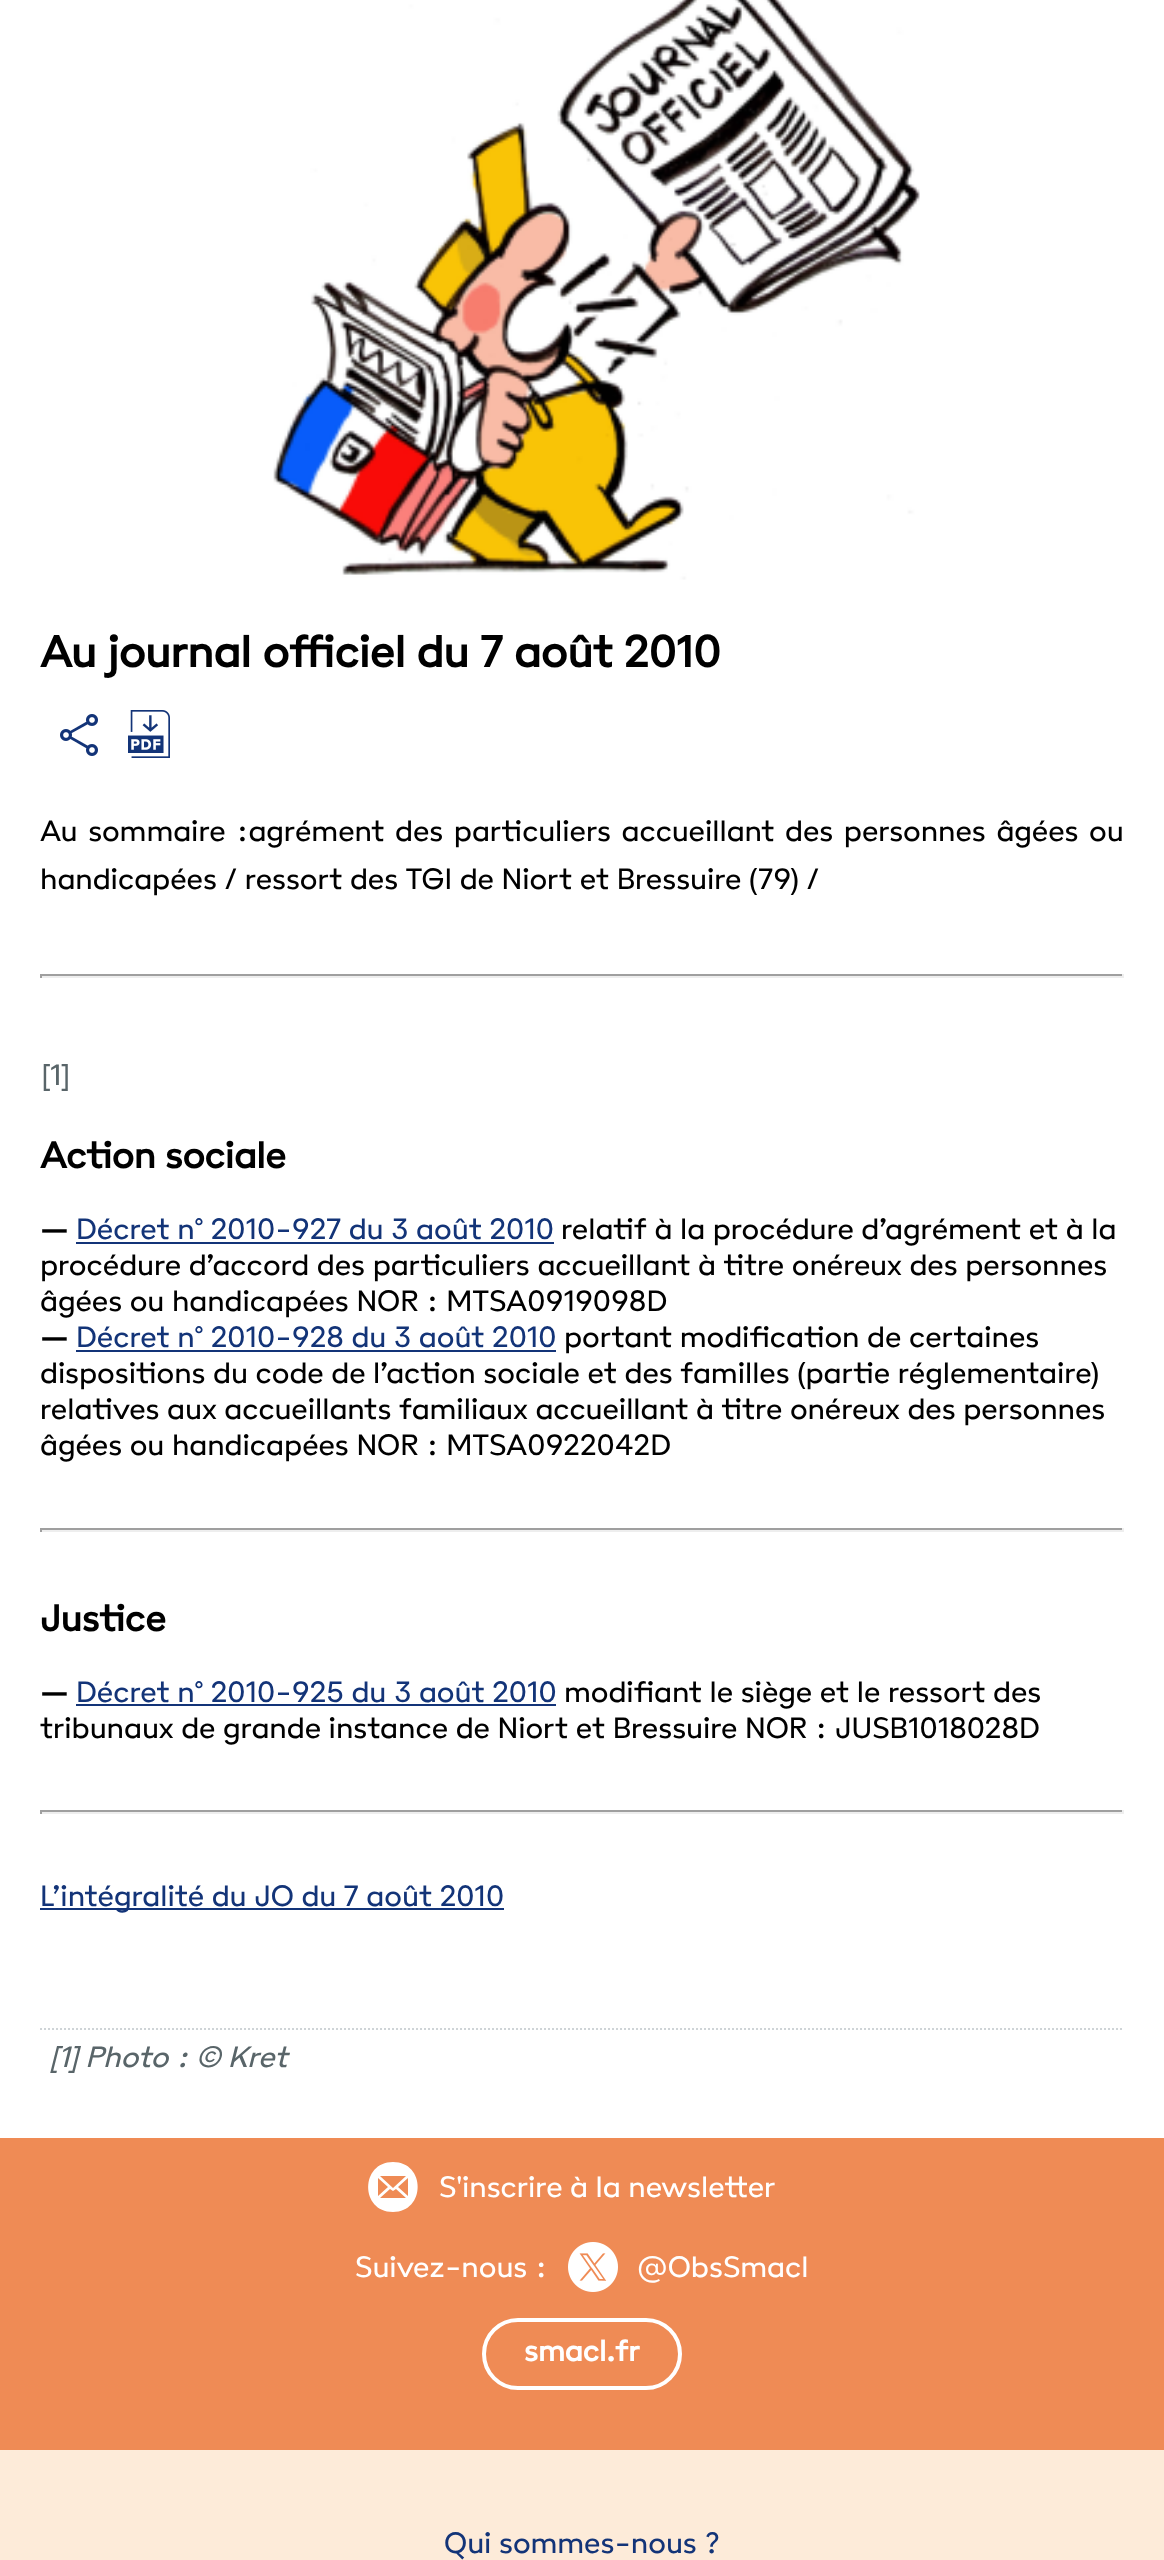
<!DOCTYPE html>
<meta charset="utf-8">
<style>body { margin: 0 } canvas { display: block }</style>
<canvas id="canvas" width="1164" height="2560"></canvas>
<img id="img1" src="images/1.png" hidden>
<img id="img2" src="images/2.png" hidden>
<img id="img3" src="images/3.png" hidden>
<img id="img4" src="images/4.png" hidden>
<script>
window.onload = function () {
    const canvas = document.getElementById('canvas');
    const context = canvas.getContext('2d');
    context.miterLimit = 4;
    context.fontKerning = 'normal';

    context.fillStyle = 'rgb(255, 255, 255)';
    context.fillRect(0, 0, 1164, 2560);
    context.drawImage(document.getElementById('img1'), 273, 0, 647, 580);
    context.drawImage(document.getElementById('img2'), 60, 714, 38, 42);
    context.drawImage(document.getElementById('img3'), 128, 710, 42, 48);
    context.fillStyle = 'rgb(159, 159, 159)';
    context.fillRect(40, 974, 1084, 2);
    context.fillStyle = 'rgb(238, 238, 238)';
    context.fillRect(1122, 974, 2, 4);
    context.fillRect(40, 976, 1084, 2);
    context.fillStyle = 'rgb(159, 159, 159)';
    context.fillRect(40, 974, 2, 4);
    context.fillStyle = 'rgb(19, 52, 120)';
    context.fillRect(76, 1242, 478, 2);
    context.fillRect(76, 1350, 480, 2);
    context.fillStyle = 'rgb(159, 159, 159)';
    context.fillRect(40, 1528, 1084, 2);
    context.fillStyle = 'rgb(238, 238, 238)';
    context.fillRect(1122, 1528, 2, 4);
    context.fillRect(40, 1530, 1084, 2);
    context.fillStyle = 'rgb(159, 159, 159)';
    context.fillRect(40, 1528, 2, 4);
    context.fillStyle = 'rgb(19, 52, 120)';
    context.fillRect(76, 1704, 480, 2);
    context.fillStyle = 'rgb(159, 159, 159)';
    context.fillRect(40, 1810, 1084, 2);
    context.fillStyle = 'rgb(238, 238, 238)';
    context.fillRect(1122, 1810, 2, 4);
    context.fillRect(40, 1812, 1084, 2);
    context.fillStyle = 'rgb(159, 159, 159)';
    context.fillRect(40, 1810, 2, 4);
    context.fillStyle = 'rgb(19, 52, 120)';
    context.fillRect(40, 1908, 464, 2);
    context.beginPath();
    context.moveTo(40, 2029);
    context.lineTo(1124, 2029);
    context.strokeStyle = 'rgb(207, 212, 215)';
    context.lineWidth = 2;
    context.setLineDash([2, 2]);
    context.stroke();
    context.fillStyle = 'rgb(253, 235, 217)';
    context.fillRect(0, 2450, 1164, 110);
    context.fillStyle = 'rgb(239, 139, 85)';
    context.fillRect(0, 2138, 1164, 312);
    context.fillStyle = 'rgb(255, 255, 255)';
    context.beginPath();
    context.moveTo(393, 2162);
    context.bezierCurveTo(360, 2162, 360, 2212, 393, 2212);
    context.bezierCurveTo(426, 2212, 426, 2162, 393, 2162);
    context.closePath();
    context.moveTo(406, 2176);
    context.lineTo(393, 2188);
    context.lineTo(380, 2176);
    context.closePath();
    context.moveTo(378, 2178);
    context.lineTo(388, 2187);
    context.lineTo(378, 2196);
    context.closePath();
    context.moveTo(380, 2198);
    context.lineTo(390, 2189);
    context.lineTo(393, 2191);
    context.lineTo(396, 2189);
    context.lineTo(406, 2198);
    context.closePath();
    context.moveTo(408, 2196);
    context.lineTo(398, 2187);
    context.lineTo(408, 2178);
    context.closePath();
    context.fill();
    context.drawImage(document.getElementById('img4'), 568, 2242, 50, 50);
    context.beginPath();
    context.roundRect(484, 2320, 196, 68, 34);
    context.strokeStyle = 'rgb(255, 255, 255)';
    context.lineWidth = 4;
    context.setLineDash([]);
    context.stroke();
    context.font = 'bold 48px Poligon';
    context.fillStyle = 'rgb(0, 0, 0)';
    context.fillText('Au journal officiel du 7 août 2010', 40, 667);
    context.wordSpacing = '3px';
    context.font = '32px Poligon';
    context.fillText('Au sommaire :agrément', 40, 841);
    context.fillText('des particuliers accueillant', 395, 841);
    context.fillText('des personnes âgées ou', 785, 841);
    context.wordSpacing = '0px';
    context.fillText('handicapées / ressort des TGI de Niort et Bressuire (79) /', 40, 889);
    context.fillStyle = 'rgb(89, 101, 105)';
    context.fillText('[1]', 42, 1085);
    context.font = 'bold 40px Poligon';
    context.fillStyle = 'rgb(0, 0, 0)';
    context.fillText('Action sociale', 40, 1168);
    context.font = 'bold 32px Poligon';
    context.fillText('–', 40, 1239);
    context.font = '32px Poligon';
    context.fillStyle = 'rgb(19, 52, 120)';
    context.fillText('Décret n° 2010-927 du 3 août 2010', 76, 1239);
    context.fillStyle = 'rgb(0, 0, 0)';
    context.fillText('relatif à la procédure d’agrément et à la', 561, 1239);
    context.fillText('procédure d’accord des particuliers accueillant à titre onéreux des personnes', 40, 1275);
    context.fillText('âgées ou handicapées NOR : MTSA0919098D', 40, 1311);
    context.font = 'bold 32px Poligon';
    context.fillText('–', 40, 1347);
    context.font = '32px Poligon';
    context.fillStyle = 'rgb(19, 52, 120)';
    context.fillText('Décret n° 2010-928 du 3 août 2010', 76, 1347);
    context.fillStyle = 'rgb(0, 0, 0)';
    context.fillText('portant modification de certaines', 564, 1347);
    context.fillText('dispositions du code de l’action sociale et des familles (partie réglementaire)', 40, 1383);
    context.fillText('relatives aux accueillants familiaux accueillant à titre onéreux des personnes', 40, 1419);
    context.fillText('âgées ou handicapées NOR : MTSA0922042D', 40, 1455);
    context.font = 'bold 40px Poligon';
    context.fillText('Justice', 40, 1631);
    context.font = 'bold 32px Poligon';
    context.fillText('–', 40, 1702);
    context.font = '32px Poligon';
    context.fillStyle = 'rgb(19, 52, 120)';
    context.fillText('Décret n° 2010-925 du 3 août 2010', 76, 1702);
    context.fillStyle = 'rgb(0, 0, 0)';
    context.fillText('modifiant le siège et le ressort des', 564, 1702);
    context.fillText('tribunaux de grande instance de Niort et Bressuire NOR : JUSB1018028D', 40, 1738);
    context.fillStyle = 'rgb(19, 52, 120)';
    context.fillText('L’intégralité du JO du 7 août 2010', 40, 1906);
    context.font = 'italic 32px Poligon';
    context.fillStyle = 'rgb(89, 101, 105)';
    context.fillText('[1] Photo : © Kret', 50, 2067);
    context.font = '32px Poligon';
    context.fillStyle = 'rgb(255, 255, 255)';
    context.fillText('S\'inscrire à la newsletter', 439, 2197);
    context.fillText('Suivez-nous :', 355, 2277);
    context.fillText('@ObsSmacl', 637, 2277);
    context.font = 'bold 32px Poligon';
    context.fillText('smacl.fr', 524, 2361);
    context.font = '32px Poligon';
    context.fillStyle = 'rgb(19, 52, 120)';
    context.fillText('Qui sommes-nous ?', 444, 2553);
};
</script>
